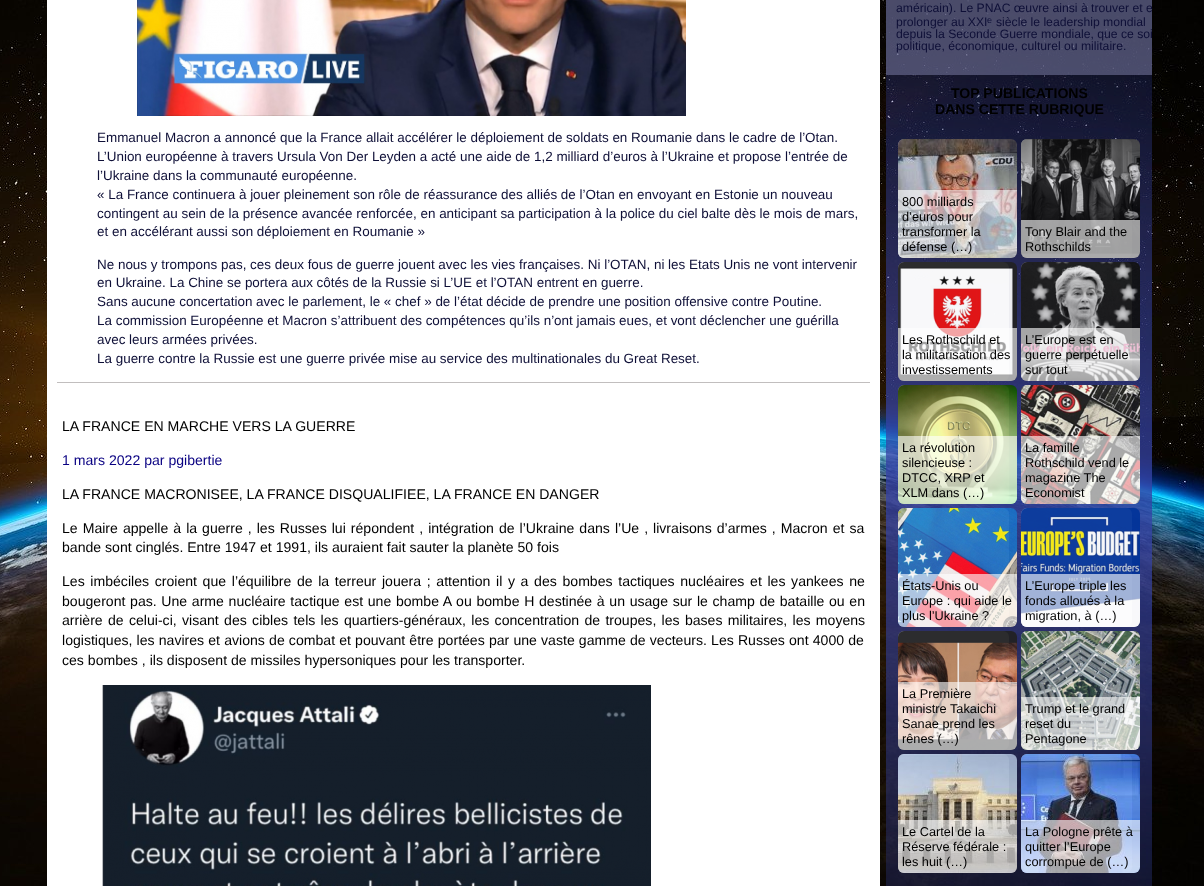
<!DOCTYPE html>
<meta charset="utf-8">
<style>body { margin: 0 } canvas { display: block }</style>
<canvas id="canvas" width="1204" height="886"></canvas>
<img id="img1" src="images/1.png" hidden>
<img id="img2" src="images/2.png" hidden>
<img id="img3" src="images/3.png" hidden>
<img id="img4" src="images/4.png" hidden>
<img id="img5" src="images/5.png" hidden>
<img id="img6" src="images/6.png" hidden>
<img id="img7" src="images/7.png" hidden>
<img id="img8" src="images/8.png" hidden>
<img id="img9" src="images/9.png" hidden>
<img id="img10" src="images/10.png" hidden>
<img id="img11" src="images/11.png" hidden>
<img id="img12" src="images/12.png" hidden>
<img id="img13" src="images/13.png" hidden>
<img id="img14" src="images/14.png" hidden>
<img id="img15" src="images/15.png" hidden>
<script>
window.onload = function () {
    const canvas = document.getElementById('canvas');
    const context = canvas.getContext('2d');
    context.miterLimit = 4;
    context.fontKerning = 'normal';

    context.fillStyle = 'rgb(255, 255, 255)';
    context.fillRect(0, 0, 1204, 886);
    context.drawImage(document.getElementById('img1'), 0, 0, 1204, 886);
    context.fillRect(47, 0, 833, 886);
    context.fillStyle = 'rgb(193, 190, 190)';
    context.fillRect(57, 382, 813, 1);
    context.drawImage(document.getElementById('img2'), 137, 0, 549, 116);
    context.drawImage(document.getElementById('img3'), 102, 685, 549, 201);
    context.fillStyle = 'rgba(104, 107, 142, 0.66)';
    context.fillRect(886, 0, 266, 75);
    context.fillStyle = 'rgba(255, 255, 255, 0.56)';
    context.beginPath();
    context.roundRect(898, 139, 111, 119, 6);
    context.fill();
    context.drawImage(document.getElementById('img4'), 898, 139, 119, 119);
    context.fillStyle = 'rgba(255, 255, 255, 0.61)';
    context.beginPath();
    context.roundRect(898, 190, 119, 68, [0, 0, 6, 6]);
    context.fill();
    context.fillStyle = 'rgba(255, 255, 255, 0.56)';
    context.beginPath();
    context.roundRect(1021, 139, 111, 119, 6);
    context.fill();
    context.drawImage(document.getElementById('img5'), 1021, 139, 119, 119);
    context.fillStyle = 'rgba(255, 255, 255, 0.61)';
    context.beginPath();
    context.roundRect(1021, 220, 119, 38, [0, 0, 6, 6]);
    context.fill();
    context.fillStyle = 'rgba(255, 255, 255, 0.56)';
    context.beginPath();
    context.roundRect(898, 262, 111, 119, 6);
    context.fill();
    context.drawImage(document.getElementById('img6'), 898, 262, 119, 119);
    context.fillStyle = 'rgba(255, 255, 255, 0.61)';
    context.beginPath();
    context.roundRect(898, 328, 119, 53, [0, 0, 6, 6]);
    context.fill();
    context.fillStyle = 'rgba(255, 255, 255, 0.56)';
    context.beginPath();
    context.roundRect(1021, 262, 111, 119, 6);
    context.fill();
    context.drawImage(document.getElementById('img7'), 1021, 262, 119, 119);
    context.fillStyle = 'rgba(255, 255, 255, 0.61)';
    context.beginPath();
    context.roundRect(1021, 328, 119, 53, [0, 0, 6, 6]);
    context.fill();
    context.fillStyle = 'rgba(255, 255, 255, 0.56)';
    context.beginPath();
    context.roundRect(898, 385, 111, 119, 6);
    context.fill();
    context.drawImage(document.getElementById('img8'), 898, 385, 119, 119);
    context.fillStyle = 'rgba(255, 255, 255, 0.61)';
    context.beginPath();
    context.roundRect(898, 436, 119, 68, [0, 0, 6, 6]);
    context.fill();
    context.fillStyle = 'rgba(255, 255, 255, 0.56)';
    context.beginPath();
    context.roundRect(1021, 385, 111, 119, 6);
    context.fill();
    context.drawImage(document.getElementById('img9'), 1021, 385, 119, 119);
    context.fillStyle = 'rgba(255, 255, 255, 0.61)';
    context.beginPath();
    context.roundRect(1021, 436, 119, 68, [0, 0, 6, 6]);
    context.fill();
    context.fillStyle = 'rgba(255, 255, 255, 0.56)';
    context.beginPath();
    context.roundRect(898, 508, 111, 119, 6);
    context.fill();
    context.drawImage(document.getElementById('img10'), 898, 508, 119, 119);
    context.fillStyle = 'rgba(255, 255, 255, 0.61)';
    context.beginPath();
    context.roundRect(898, 574, 119, 53, [0, 0, 6, 6]);
    context.fill();
    context.fillStyle = 'rgba(255, 255, 255, 0.56)';
    context.beginPath();
    context.roundRect(1021, 508, 111, 119, 6);
    context.fill();
    context.drawImage(document.getElementById('img11'), 1021, 508, 119, 119);
    context.fillStyle = 'rgba(255, 255, 255, 0.61)';
    context.beginPath();
    context.roundRect(1021, 574, 119, 53, [0, 0, 6, 6]);
    context.fill();
    context.fillStyle = 'rgba(255, 255, 255, 0.56)';
    context.beginPath();
    context.roundRect(898, 631, 111, 119, 6);
    context.fill();
    context.drawImage(document.getElementById('img12'), 898, 631, 119, 119);
    context.fillStyle = 'rgba(255, 255, 255, 0.61)';
    context.beginPath();
    context.roundRect(898, 682, 119, 68, [0, 0, 6, 6]);
    context.fill();
    context.fillStyle = 'rgba(255, 255, 255, 0.56)';
    context.beginPath();
    context.roundRect(1021, 631, 111, 119, 6);
    context.fill();
    context.drawImage(document.getElementById('img13'), 1021, 631, 119, 119);
    context.fillStyle = 'rgba(255, 255, 255, 0.61)';
    context.beginPath();
    context.roundRect(1021, 697, 119, 53, [0, 0, 6, 6]);
    context.fill();
    context.fillStyle = 'rgba(255, 255, 255, 0.56)';
    context.beginPath();
    context.roundRect(898, 754, 111, 119, 6);
    context.fill();
    context.drawImage(document.getElementById('img14'), 898, 754, 119, 119);
    context.fillStyle = 'rgba(255, 255, 255, 0.61)';
    context.beginPath();
    context.roundRect(898, 820, 119, 53, [0, 0, 6, 6]);
    context.fill();
    context.fillStyle = 'rgba(255, 255, 255, 0.56)';
    context.beginPath();
    context.roundRect(1021, 754, 111, 119, 6);
    context.fill();
    context.drawImage(document.getElementById('img15'), 1021, 754, 119, 119);
    context.fillStyle = 'rgba(255, 255, 255, 0.61)';
    context.beginPath();
    context.roundRect(1021, 820, 119, 53, [0, 0, 6, 6]);
    context.fill();
    context.font = '13.45px Liberation Sans';
    context.fillStyle = 'rgb(14, 15, 55)';
    context.fillText('Emmanuel Macron a annoncé que la France allait accélérer le déploiement de soldats en Roumanie dans le cadre de l’Otan.', 97, 142);
    context.fillText('L’Union européenne à travers Ursula Von Der Leyden a acté une aide de 1,2 milliard d’euros à l’Ukraine et propose l’entrée de', 97, 161);
    context.fillText('l’Ukraine dans la communauté européenne.', 97, 180);
    context.fillText('« La France continuera à jouer pleinement son rôle de réassurance des alliés de l’Otan en envoyant en Estonie un nouveau', 97, 199);
    context.fillText('contingent au sein de la présence avancée renforcée, en anticipant sa participation à la police du ciel balte dès le mois de mars,', 97, 218);
    context.fillText('et en accélérant aussi son déploiement en Roumanie »', 97, 236);
    context.fillText('Ne nous y trompons pas, ces deux fous de guerre jouent avec les vies françaises. Ni l’OTAN, ni les Etats Unis ne vont intervenir', 97, 269);
    context.fillText('en Ukraine. La Chine se portera aux côtés de la Russie si L’UE et l’OTAN entrent en guerre.', 97, 287);
    context.fillText('Sans aucune concertation avec le parlement, le « chef » de l’état décide de prendre une position offensive contre Poutine.', 97, 306);
    context.fillText('La commission Européenne et Macron s’attribuent des compétences qu’ils n’ont jamais eues, et vont déclencher une guérilla', 97, 325);
    context.fillText('avec leurs armées privées.', 97, 344);
    context.fillText('La guerre contre la Russie est une guerre privée mise au service des multinationales du Great Reset.', 97, 363);
    context.font = '14.08px Liberation Sans';
    context.fillStyle = 'rgb(0, 0, 0)';
    context.fillText('LA FRANCE EN MARCHE VERS LA GUERRE', 62, 431);
    context.fillStyle = 'rgb(9, 0, 130)';
    context.fillText('1 mars 2022 par pgibertie', 62, 465);
    context.fillStyle = 'rgb(0, 0, 0)';
    context.fillText('LA FRANCE MACRONISEE, LA FRANCE DISQUALIFIEE, LA FRANCE EN DANGER', 62, 499);
    context.wordSpacing = '1.1px';
    context.fillText('Le Maire appelle à la guerre , les Russes lui répondent , intégration de l’Ukraine dans l’Ue , livraisons d’armes , Macron et sa', 62, 533);
    context.wordSpacing = '0px';
    context.fillText('bande sont cinglés. Entre 1947 et 1991, ils auraient fait sauter la planète 50 fois', 62, 552);
    context.wordSpacing = '1.75px';
    context.fillText('Les imbéciles croient que l’équilibre de la terreur jouera ; attention il y a des bombes tactiques nucléaires et les yankees ne', 62, 586);
    context.wordSpacing = '0.75px';
    context.fillText('bougeront pas. Une arme nucléaire tactique est une bombe A ou bombe H destinée à un usage sur le champ de bataille ou en', 62, 606);
    context.wordSpacing = '1.4px';
    context.fillText('arrière de celui-ci, visant des cibles tels les quartiers-généraux, les concentration de troupes, les bases militaires, les moyens', 62, 625);
    context.wordSpacing = '0.25px';
    context.fillText('logistiques, les navires et avions de combat et pouvant être portées par une vaste gamme de vecteurs. Les Russes ont 4000 de', 62, 645);
    context.wordSpacing = '0px';
    context.fillText('ces bombes , ils disposent de missiles hypersoniques pour les transporter.', 62, 665);
    context.font = '12.2px Liberation Sans';
    context.fillStyle = 'rgb(14, 15, 55)';
    context.fillText('américain). Le PNAC œuvre ainsi à trouver et e', 896, 12);
    context.fillText('prolonger au XXI', 896, 26);
    context.font = '9px Liberation Sans';
    context.fillText('e', 987, 23);
    context.font = '12.2px Liberation Sans';
    context.fillText('siècle le leadership mondial', 996, 26);
    context.fillText('depuis la Seconde Guerre mondiale, que ce soi', 896, 38);
    context.fillText('politique, économique, culturel ou militaire.', 896, 50);
    context.font = 'bold 14.08px Liberation Sans';
    context.fillStyle = 'rgb(0, 0, 0)';
    context.fillText('TOP PUBLICATIONS', 951, 98);
    context.fillText('DANS CETTE RUBRIQUE', 935, 114);
    context.font = '12.75px Liberation Sans';
    context.fillText('800 milliards', 902, 206);
    context.fillText('d’euros pour', 902, 221);
    context.fillText('transformer la', 902, 236);
    context.fillText('défense (…)', 902, 251);
    context.fillText('Tony Blair and the', 1025, 236);
    context.fillText('Rothschilds', 1025, 251);
    context.fillText('Les Rothschild et', 902, 344);
    context.fillText('la militarisation des', 902, 359);
    context.fillText('investissements', 902, 374);
    context.fillText('L’Europe est en', 1025, 344);
    context.fillText('guerre perpétuelle', 1025, 359);
    context.fillText('sur tout', 1025, 374);
    context.fillText('La révolution', 902, 452);
    context.fillText('silencieuse :', 902, 467);
    context.fillText('DTCC, XRP et', 902, 482);
    context.fillText('XLM dans (…)', 902, 497);
    context.fillText('La famille', 1025, 452);
    context.fillText('Rothschild vend le', 1025, 467);
    context.fillText('magazine The', 1025, 482);
    context.fillText('Economist', 1025, 497);
    context.fillText('États-Unis ou', 902, 590);
    context.fillText('Europe : qui aide le', 902, 605);
    context.fillText('plus l’Ukraine ?', 902, 620);
    context.fillText('L’Europe triple les', 1025, 590);
    context.fillText('fonds alloués à la', 1025, 605);
    context.fillText('migration, à (…)', 1025, 620);
    context.fillText('La Première', 902, 698);
    context.fillText('ministre Takaichi', 902, 713);
    context.fillText('Sanae prend les', 902, 728);
    context.fillText('rênes (…)', 902, 743);
    context.fillText('Trump et le grand', 1025, 713);
    context.fillText('reset du', 1025, 728);
    context.fillText('Pentagone', 1025, 743);
    context.fillText('Le Cartel de la', 902, 836);
    context.fillText('Réserve fédérale :', 902, 851);
    context.fillText('les huit (…)', 902, 866);
    context.fillText('La Pologne prête à', 1025, 836);
    context.fillText('quitter l’Europe', 1025, 851);
    context.fillText('corrompue de (…)', 1025, 866);
};
</script>
